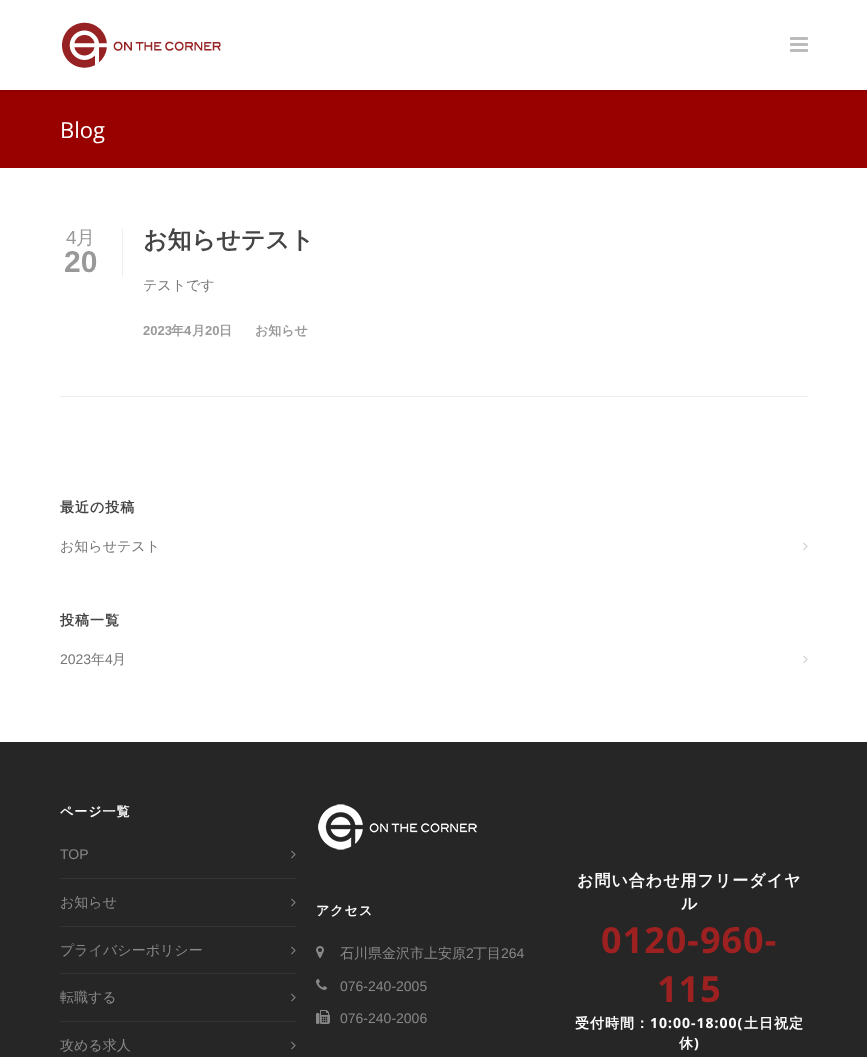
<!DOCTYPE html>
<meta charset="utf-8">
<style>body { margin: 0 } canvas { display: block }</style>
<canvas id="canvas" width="867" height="1057"></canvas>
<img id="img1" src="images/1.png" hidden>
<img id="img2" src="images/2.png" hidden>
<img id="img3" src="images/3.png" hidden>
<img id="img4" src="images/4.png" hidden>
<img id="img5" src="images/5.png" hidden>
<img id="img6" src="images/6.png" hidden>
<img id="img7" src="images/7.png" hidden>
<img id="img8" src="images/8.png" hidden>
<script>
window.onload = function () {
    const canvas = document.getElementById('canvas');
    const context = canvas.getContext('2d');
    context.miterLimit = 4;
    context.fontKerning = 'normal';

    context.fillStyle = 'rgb(255, 255, 255)';
    context.fillRect(0, 0, 867, 1057);
    context.fillStyle = 'rgb(153, 0, 0)';
    context.fillRect(0, 90, 867, 78);
    context.save();
    context.beginPath();
    context.rect(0, 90, 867, 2);
    context.clip();
    context.fillStyle = 'rgba(0, 0, 0, 0.16)';
    context.filter = 'blur(1px)';
    context.beginPath();
    context.rect(-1, -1, 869, 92);
    context.fill();
    context.filter = 'none';
    context.restore();
    context.drawImage(document.getElementById('img1'), 62, 22, 159, 46);
    context.drawImage(document.getElementById('img2'), 790, 37, 18, 15);
    context.fillStyle = 'rgb(239, 239, 239)';
    context.fillRect(60, 396, 748, 1);
    context.fillRect(122, 228, 1, 49);
    context.drawImage(document.getElementById('img3'), 803, 542, 5, 9);
    context.drawImage(document.getElementById('img3'), 803, 655, 5, 9);
    context.fillStyle = 'rgb(38, 38, 38)';
    context.fillRect(0, 742, 867, 315);
    context.fillStyle = 'rgb(51, 51, 51)';
    context.fillRect(60, 878, 236, 1);
    context.drawImage(document.getElementById('img4'), 291, 850, 5, 9);
    context.fillRect(60, 926, 236, 1);
    context.drawImage(document.getElementById('img4'), 291, 898, 5, 9);
    context.fillRect(60, 973, 236, 1);
    context.drawImage(document.getElementById('img4'), 291, 946, 5, 9);
    context.fillRect(60, 1021, 236, 1);
    context.drawImage(document.getElementById('img4'), 291, 993, 5, 9);
    context.drawImage(document.getElementById('img4'), 291, 1041, 5, 9);
    context.drawImage(document.getElementById('img5'), 318, 804, 159, 46);
    context.drawImage(document.getElementById('img6'), 316, 946, 8, 12);
    context.drawImage(document.getElementById('img7'), 316, 979, 11, 11);
    context.drawImage(document.getElementById('img8'), 316, 1010, 14, 14);
    context.font = '22px Open Sans';
    context.fillStyle = 'rgb(255, 255, 255)';
    context.fillText('Blog', 60, 138);
    context.font = '19px Liberation Sans';
    context.fillStyle = 'rgb(153, 153, 153)';
    context.fillText('4', 66, 244);
    context.font = '500 19px WenQuanYi Zen Hei';
    context.fillText('月', 76, 244);
    context.font = 'bold 30px Liberation Sans';
    context.fillText('20', 64, 272);
    context.font = 'bold 24px WenQuanYi Zen Hei';
    context.fillStyle = 'rgb(68, 68, 68)';
    context.fillText('お知らせテスト', 143, 248);
    context.font = '500 14px WenQuanYi Zen Hei';
    context.fillStyle = 'rgb(119, 119, 119)';
    context.fillText('テストです', 143, 290);
    context.font = 'bold 13px Liberation Sans';
    context.fillStyle = 'rgb(153, 153, 153)';
    context.fillText('2023', 143, 335);
    context.font = 'bold 13px WenQuanYi Zen Hei';
    context.fillText('年', 171, 335);
    context.font = 'bold 13px Liberation Sans';
    context.fillText('4', 184, 335);
    context.font = 'bold 13px WenQuanYi Zen Hei';
    context.fillText('月', 192, 335);
    context.font = 'bold 13px Liberation Sans';
    context.fillText('20', 205, 335);
    context.font = 'bold 13px WenQuanYi Zen Hei';
    context.fillText('日', 219, 335);
    context.fillText('お知らせ', 255, 335);
    context.letterSpacing = '1px';
    context.font = 'bold 14px WenQuanYi Zen Hei';
    context.fillStyle = 'rgb(68, 68, 68)';
    context.fillText('最近の投稿', 60, 512);
    context.letterSpacing = '0px';
    context.font = '500 14px WenQuanYi Zen Hei';
    context.fillStyle = 'rgb(119, 119, 119)';
    context.fillText('お知らせテスト', 60, 551);
    context.letterSpacing = '1px';
    context.font = 'bold 14px WenQuanYi Zen Hei';
    context.fillStyle = 'rgb(68, 68, 68)';
    context.fillText('投稿一覧', 60, 625);
    context.letterSpacing = '0px';
    context.font = '14px Liberation Sans';
    context.fillStyle = 'rgb(119, 119, 119)';
    context.fillText('2023', 60, 664);
    context.font = '500 14px WenQuanYi Zen Hei';
    context.fillText('年', 91, 664);
    context.font = '14px Liberation Sans';
    context.fillText('4', 105, 664);
    context.font = '500 14px WenQuanYi Zen Hei';
    context.fillText('月', 112, 664);
    context.letterSpacing = '1px';
    context.font = 'bold 13px WenQuanYi Zen Hei';
    context.fillStyle = 'rgb(255, 255, 255)';
    context.fillText('ページ一覧', 60, 816);
    context.letterSpacing = '0px';
    context.font = '14px Liberation Sans';
    context.fillStyle = 'rgb(136, 136, 136)';
    context.fillText('TOP', 60, 859);
    context.font = '500 14px WenQuanYi Zen Hei';
    context.fillText('お知らせ', 60, 907);
    context.fillText('プライバシーポリシー', 60, 955);
    context.fillText('転職する', 60, 1002);
    context.fillText('攻める求人', 60, 1050);
    context.letterSpacing = '1px';
    context.font = 'bold 13px WenQuanYi Zen Hei';
    context.fillStyle = 'rgb(255, 255, 255)';
    context.fillText('アクセス', 316, 915);
    context.letterSpacing = '0px';
    context.font = '500 14px WenQuanYi Zen Hei';
    context.fillStyle = 'rgb(136, 136, 136)';
    context.fillText('石川県金沢市上安原', 340, 958);
    context.font = '14px Liberation Sans';
    context.fillText('2', 466, 958);
    context.font = '500 14px WenQuanYi Zen Hei';
    context.fillText('丁目', 473, 958);
    context.font = '14px Liberation Sans';
    context.fillText('264', 501, 958);
    context.fillText('076-240-2005', 340, 991);
    context.fillText('076-240-2006', 340, 1023);
    context.letterSpacing = '1px';
    context.font = 'bold 16px WenQuanYi Zen Hei';
    context.fillStyle = 'rgb(255, 255, 255)';
    context.fillText('お問い合わせ用フリーダイヤ', 577, 886);
    context.fillText('ル', 681, 909);
    context.font = 'bold 36px Noto Sans';
    context.fillStyle = 'rgb(158, 33, 33)';
    context.fillText('0120-960-', 601, 953);
    context.fillText('115', 657, 1002);
    context.font = 'bold 14px WenQuanYi Zen Hei';
    context.fillStyle = 'rgb(255, 255, 255)';
    context.fillText('受付時間：', 575, 1028);
    context.font = 'bold 14px Noto Sans';
    context.fillText('10:00-18:00(', 650, 1028);
    context.font = 'bold 14px WenQuanYi Zen Hei';
    context.fillText('土日祝定', 744, 1028);
    context.fillText('休', 679, 1048);
    context.font = 'bold 14px Noto Sans';
    context.fillText(')', 694, 1048);
};
</script>
